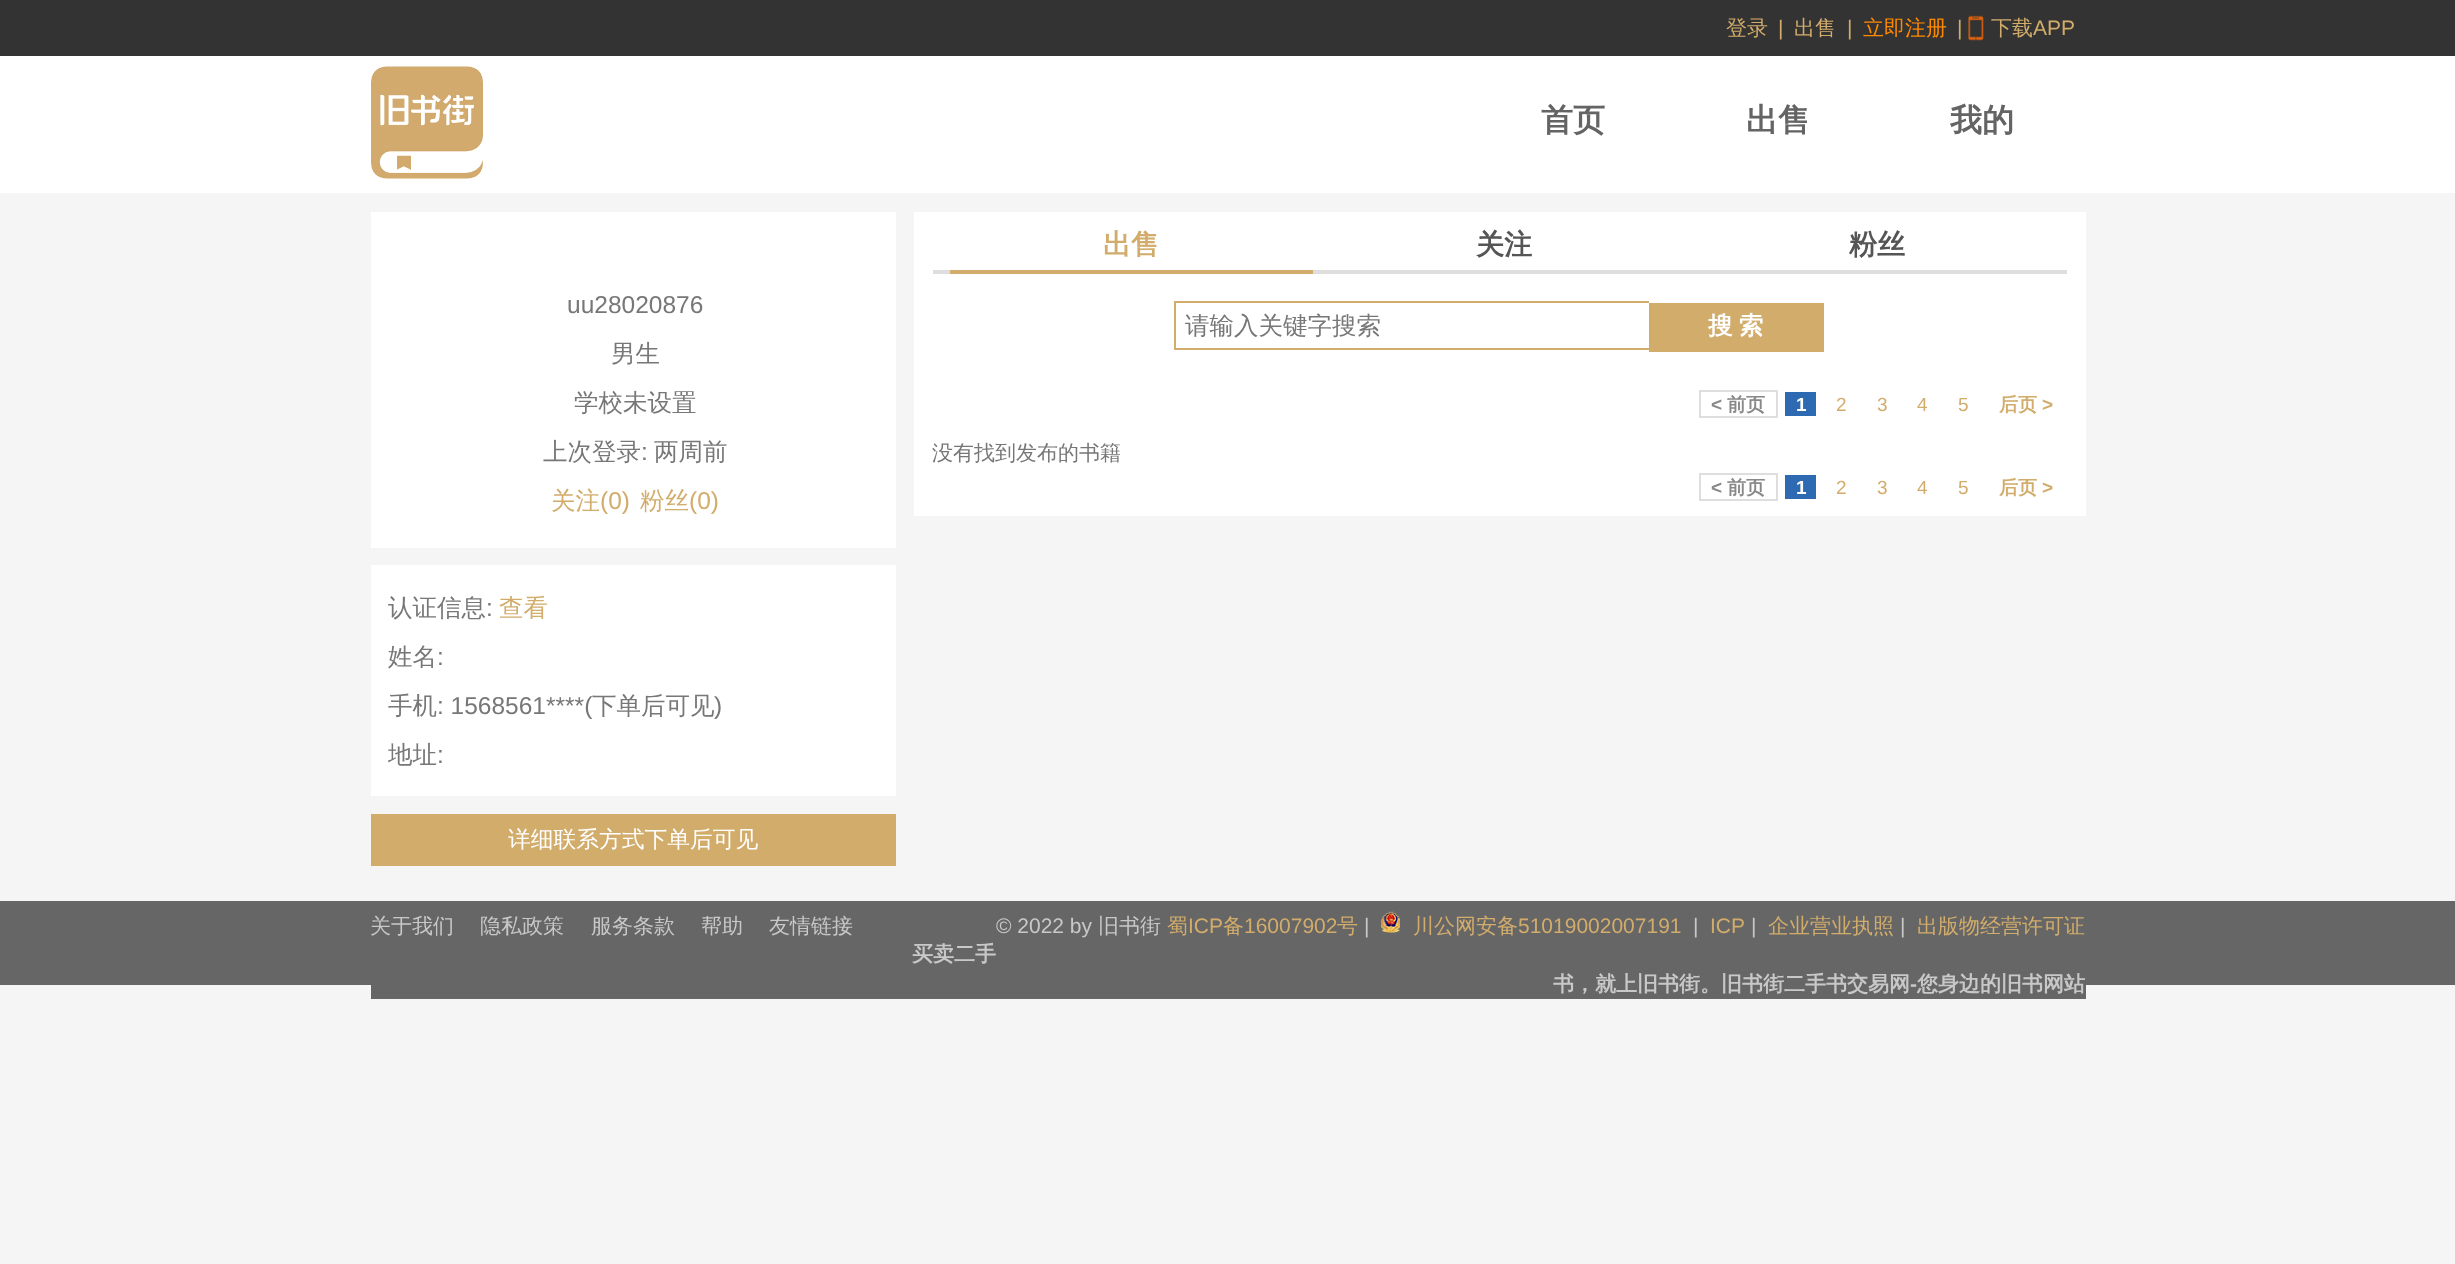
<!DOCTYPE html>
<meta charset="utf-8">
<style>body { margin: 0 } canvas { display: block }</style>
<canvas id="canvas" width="2455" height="1264"></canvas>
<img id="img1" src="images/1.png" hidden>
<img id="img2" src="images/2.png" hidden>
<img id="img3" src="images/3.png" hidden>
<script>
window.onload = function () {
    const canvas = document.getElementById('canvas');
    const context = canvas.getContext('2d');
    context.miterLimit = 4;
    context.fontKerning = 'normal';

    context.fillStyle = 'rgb(245, 245, 245)';
    context.fillRect(0, 0, 2455, 1264);
    context.fillStyle = 'rgb(51, 51, 51)';
    context.fillRect(0, 0, 2455, 56);
    context.drawImage(document.getElementById('img1'), 1968, 15, 16, 26);
    context.fillStyle = 'rgb(255, 255, 255)';
    context.fillRect(0, 56, 2455, 137);
    context.drawImage(document.getElementById('img2'), 371, 66, 112, 113);
    context.fillRect(371, 212, 525, 336);
    context.fillRect(371, 565, 525, 231);
    context.fillStyle = 'rgb(210, 172, 107)';
    context.fillRect(371, 814, 525, 52);
    context.fillStyle = 'rgb(255, 255, 255)';
    context.fillRect(914, 212, 1172, 304);
    context.fillStyle = 'rgb(222, 222, 222)';
    context.fillRect(933, 270, 1134, 4);
    context.fillStyle = 'rgb(210, 172, 107)';
    context.fillRect(950, 270, 363, 4);
    context.fillRect(1174, 301, 475, 2);
    context.fillRect(1174, 348, 475, 2);
    context.fillRect(1174, 301, 2, 49);
    context.fillRect(1649, 303, 175, 49);
    context.strokeStyle = 'rgb(222, 222, 222)';
    context.lineWidth = 2;
    context.strokeRect(1700, 391, 77, 26);
    context.fillStyle = 'rgb(46, 106, 177)';
    context.fillRect(1785, 392, 31, 24);
    context.strokeRect(1700, 474, 77, 26);
    context.fillRect(1785, 475, 31, 24);
    context.fillStyle = 'rgb(102, 102, 102)';
    context.fillRect(0, 901, 2455, 84);
    context.drawImage(document.getElementById('img3'), 1381, 911, 19, 22);
    context.fillRect(371, 985, 1715, 14);
    context.font = '500 21px WenQuanYi Zen Hei';
    context.fillStyle = 'rgb(210, 172, 107)';
    context.fillText('登录', 1726, 35);
    context.font = '21px Liberation Sans';
    context.fillText('|', 1778, 35);
    context.font = '500 21px WenQuanYi Zen Hei';
    context.fillText('出售', 1794, 35);
    context.font = '21px Liberation Sans';
    context.fillText('|', 1847, 35);
    context.font = '500 21px WenQuanYi Zen Hei';
    context.fillStyle = 'rgb(254, 137, 0)';
    context.fillText('立即注册', 1863, 35);
    context.font = '21px Liberation Sans';
    context.fillStyle = 'rgb(210, 172, 107)';
    context.fillText('|', 1957, 35);
    context.font = '500 21px WenQuanYi Zen Hei';
    context.fillText('下载', 1991, 35);
    context.font = '21px Liberation Sans';
    context.fillText('APP', 2033, 35);
    context.font = 'bold 32px WenQuanYi Zen Hei';
    context.fillStyle = 'rgb(100, 100, 100)';
    context.fillText('首页', 1541, 131);
    context.fillText('出售', 1746, 131);
    context.fillText('我的', 1950, 131);
    context.font = '24.5px Liberation Sans';
    context.fillStyle = 'rgb(119, 119, 119)';
    context.fillText('uu28020876', 567, 313);
    context.font = '500 24.5px WenQuanYi Zen Hei';
    context.fillText('男生', 611, 362);
    context.fillText('学校未设置', 574, 411);
    context.fillText('上次登录', 543, 460);
    context.font = '24.5px Liberation Sans';
    context.fillText(':', 641, 460);
    context.font = '500 24.5px WenQuanYi Zen Hei';
    context.fillText('两周前', 654, 460);
    context.fillStyle = 'rgb(210, 172, 107)';
    context.fillText('关注', 551, 509);
    context.font = '24.5px Liberation Sans';
    context.fillText('(0)', 600, 509);
    context.font = '500 24.5px WenQuanYi Zen Hei';
    context.fillText('粉丝', 640, 509);
    context.font = '24.5px Liberation Sans';
    context.fillText('(0)', 689, 509);
    context.font = '500 24.5px WenQuanYi Zen Hei';
    context.fillStyle = 'rgb(119, 119, 119)';
    context.fillText('认证信息', 388, 616);
    context.font = '24.5px Liberation Sans';
    context.fillText(':', 486, 616);
    context.font = '500 24.5px WenQuanYi Zen Hei';
    context.fillStyle = 'rgb(210, 172, 107)';
    context.fillText('查看', 499, 616);
    context.fillStyle = 'rgb(119, 119, 119)';
    context.fillText('姓名', 388, 665);
    context.font = '24.5px Liberation Sans';
    context.fillText(':', 437, 665);
    context.font = '500 24.5px WenQuanYi Zen Hei';
    context.fillText('手机', 388, 714);
    context.font = '24.5px Liberation Sans';
    context.fillText(': 1568561****(', 437, 714);
    context.font = '500 24.5px WenQuanYi Zen Hei';
    context.fillText('下单后可见', 592, 714);
    context.font = '24.5px Liberation Sans';
    context.fillText(')', 714, 714);
    context.font = '500 24.5px WenQuanYi Zen Hei';
    context.fillText('地址', 388, 763);
    context.font = '24.5px Liberation Sans';
    context.fillText(':', 437, 763);
    context.font = '500 22.75px WenQuanYi Zen Hei';
    context.fillStyle = 'rgb(255, 255, 255)';
    context.fillText('详细联系方式下单后可见', 508, 847);
    context.font = 'bold 28px WenQuanYi Zen Hei';
    context.fillStyle = 'rgb(210, 172, 107)';
    context.fillText('出售', 1103, 254);
    context.fillStyle = 'rgb(85, 85, 85)';
    context.fillText('关注', 1476, 254);
    context.fillText('粉丝', 1849, 254);
    context.font = '500 24.5px WenQuanYi Zen Hei';
    context.fillStyle = 'rgb(119, 119, 119)';
    context.fillText('请输入关键字搜索', 1185, 334);
    context.wordSpacing = '-1px';
    context.font = 'bold 24.5px WenQuanYi Zen Hei';
    context.fillStyle = 'rgb(255, 255, 255)';
    context.fillText('搜 索', 1708, 334);
    context.wordSpacing = '0px';
    context.font = 'bold 19px Liberation Sans';
    context.fillStyle = 'rgb(136, 136, 136)';
    context.fillText('<', 1711, 411);
    context.font = 'bold 19px WenQuanYi Zen Hei';
    context.fillText('前页', 1727, 411);
    context.font = 'bold 19px Liberation Sans';
    context.fillStyle = 'rgb(255, 255, 255)';
    context.fillText('1', 1796, 411);
    context.font = '19px Liberation Sans';
    context.fillStyle = 'rgb(210, 172, 107)';
    context.fillText('2', 1836, 411);
    context.fillText('3', 1877, 411);
    context.fillText('4', 1917, 411);
    context.fillText('5', 1958, 411);
    context.font = 'bold 19px WenQuanYi Zen Hei';
    context.fillText('后页', 1999, 411);
    context.font = 'bold 19px Liberation Sans';
    context.fillText('>', 2042, 411);
    context.font = '500 21px WenQuanYi Zen Hei';
    context.fillStyle = 'rgb(119, 119, 119)';
    context.fillText('没有找到发布的书籍', 932, 460);
    context.font = 'bold 19px Liberation Sans';
    context.fillStyle = 'rgb(136, 136, 136)';
    context.fillText('<', 1711, 494);
    context.font = 'bold 19px WenQuanYi Zen Hei';
    context.fillText('前页', 1727, 494);
    context.font = 'bold 19px Liberation Sans';
    context.fillStyle = 'rgb(255, 255, 255)';
    context.fillText('1', 1796, 494);
    context.font = '19px Liberation Sans';
    context.fillStyle = 'rgb(210, 172, 107)';
    context.fillText('2', 1836, 494);
    context.fillText('3', 1877, 494);
    context.fillText('4', 1917, 494);
    context.fillText('5', 1958, 494);
    context.font = 'bold 19px WenQuanYi Zen Hei';
    context.fillText('后页', 1999, 494);
    context.font = 'bold 19px Liberation Sans';
    context.fillText('>', 2042, 494);
    context.font = '500 21px WenQuanYi Zen Hei';
    context.fillStyle = 'rgb(200, 200, 200)';
    context.fillText('关于我们', 370, 933);
    context.fillText('隐私政策', 480, 933);
    context.fillText('服务条款', 591, 933);
    context.fillText('帮助', 701, 933);
    context.fillText('友情链接', 769, 933);
    context.font = '21px Liberation Sans';
    context.fillText('© 2022 by', 996, 933);
    context.font = '500 21px WenQuanYi Zen Hei';
    context.fillText('旧书街', 1098, 933);
    context.fillStyle = 'rgb(210, 172, 107)';
    context.fillText('蜀', 1167, 933);
    context.font = '21px Liberation Sans';
    context.fillText('ICP', 1188, 933);
    context.font = '500 21px WenQuanYi Zen Hei';
    context.fillText('备', 1223, 933);
    context.font = '21px Liberation Sans';
    context.fillText('16007902', 1244, 933);
    context.font = '500 21px WenQuanYi Zen Hei';
    context.fillText('号', 1337, 933);
    context.font = '21px Liberation Sans';
    context.fillStyle = 'rgb(200, 200, 200)';
    context.fillText('|', 1364, 933);
    context.font = '500 21px WenQuanYi Zen Hei';
    context.fillStyle = 'rgb(210, 172, 107)';
    context.fillText('川公网安备', 1413, 933);
    context.font = '21px Liberation Sans';
    context.fillText('51019002007191', 1518, 933);
    context.fillStyle = 'rgb(200, 200, 200)';
    context.fillText('|', 1693, 933);
    context.fillStyle = 'rgb(210, 172, 107)';
    context.fillText('ICP', 1710, 933);
    context.fillStyle = 'rgb(200, 200, 200)';
    context.fillText('|', 1751, 933);
    context.font = '500 21px WenQuanYi Zen Hei';
    context.fillStyle = 'rgb(210, 172, 107)';
    context.fillText('企业营业执照', 1768, 933);
    context.font = '21px Liberation Sans';
    context.fillStyle = 'rgb(200, 200, 200)';
    context.fillText('|', 1900, 933);
    context.font = '500 21px WenQuanYi Zen Hei';
    context.fillStyle = 'rgb(210, 172, 107)';
    context.fillText('出版物经营许可证', 1917, 933);
    context.font = 'bold 21px WenQuanYi Zen Hei';
    context.fillStyle = 'rgb(200, 200, 200)';
    context.fillText('买卖二手', 912, 961);
    context.fillText('书，就上旧书街。旧书街二手书交易网', 1553, 991);
    context.font = 'bold 21px Liberation Sans';
    context.fillText('-', 1910, 991);
    context.font = 'bold 21px WenQuanYi Zen Hei';
    context.fillText('您身边的旧书网站', 1917, 991);
};
</script>
